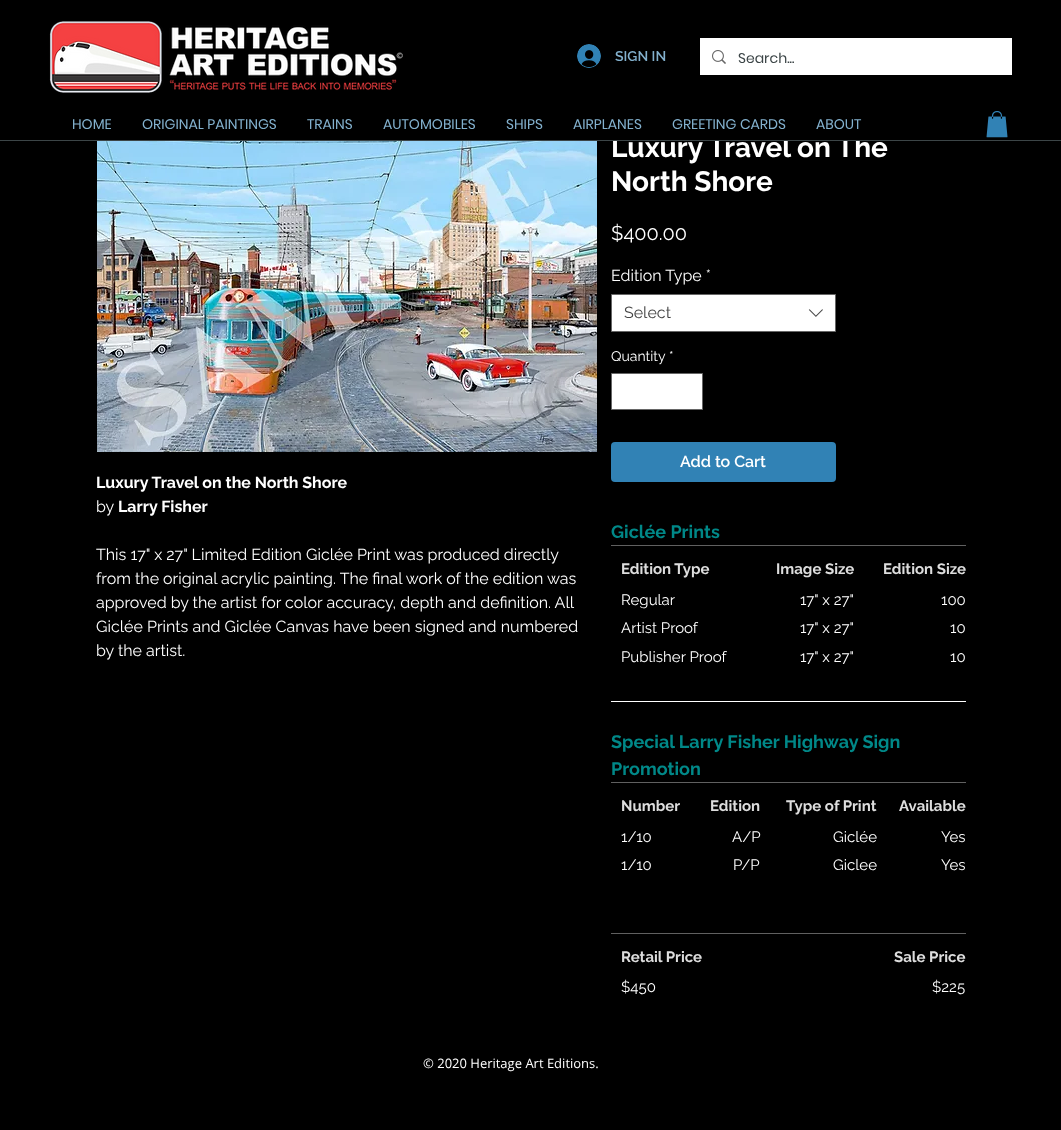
<!DOCTYPE html>
<meta charset="utf-8">
<style>body { margin: 0 } canvas { display: block }</style>
<canvas id="canvas" width="1061" height="1130"></canvas>
<img id="img1" src="images/1.png" hidden>
<img id="img2" src="images/2.png" hidden>
<img id="img3" src="images/3.png" hidden>
<img id="img4" src="images/4.png" hidden>
<img id="img5" src="images/5.png" hidden>
<img id="img6" src="images/6.png" hidden>
<script>
window.onload = function () {
    const canvas = document.getElementById('canvas');
    const context = canvas.getContext('2d');
    context.miterLimit = 4;
    context.fontKerning = 'normal';

    context.fillStyle = 'rgb(0, 0, 0)';
    context.fillRect(0, 0, 1061, 1130);
    context.drawImage(document.getElementById('img1'), 49, 21, 354, 72);
    context.drawImage(document.getElementById('img2'), 577, 44, 24, 24);
    context.fillStyle = 'rgb(255, 255, 255)';
    context.fillRect(700, 38, 312, 37);
    context.drawImage(document.getElementById('img3'), 712, 50, 14, 14);
    context.drawImage(document.getElementById('img4'), 986, 111, 22, 27);
    context.drawImage(document.getElementById('img5'), 97, 141, 500, 311);
    context.beginPath();
    context.rect(611.5, 294.5, 224, 37);
    context.fill();
    context.strokeStyle = 'rgb(102, 102, 102)';
    context.stroke();
    context.drawImage(document.getElementById('img6'), 808, 309, 15, 8);
    context.beginPath();
    context.rect(611.5, 373.5, 91, 36);
    context.fill();
    context.stroke();
    context.fillStyle = 'rgb(49, 130, 181)';
    context.beginPath();
    context.roundRect(611, 442, 225, 40, 4);
    context.fill();
    context.fillStyle = 'rgb(255, 255, 255)';
    context.fillRect(611, 701, 355, 1);
    context.fillStyle = 'rgb(96, 96, 96)';
    context.fillRect(611, 545, 355, 1);
    context.fillRect(611, 782, 355, 1);
    context.fillRect(611, 933, 355, 1);
    context.font = '600 14px Raleway';
    context.fillStyle = 'rgb(131, 177, 206)';
    context.fillText('SIGN IN', 615, 61);
    context.font = '14px Poppins';
    context.fillStyle = 'rgb(60, 69, 71)';
    context.fillText('Search...', 738, 63);
    context.fillStyle = 'rgb(131, 177, 206)';
    context.fillText('HOME', 72, 129);
    context.fillText('ORIGINAL PAINTINGS', 142, 129);
    context.fillText('TRAINS', 307, 129);
    context.fillText('AUTOMOBILES', 383, 129);
    context.fillText('SHIPS', 506, 129);
    context.fillText('AIRPLANES', 573, 129);
    context.fillText('GREETING CARDS', 672, 129);
    context.fillText('ABOUT', 816, 129);
    context.font = 'bold 16px Raleway';
    context.fillStyle = 'rgb(255, 255, 255)';
    context.fillText('Luxury Travel on the North Shore', 96, 488);
    context.font = '16px Raleway';
    context.fillText('by', 96, 512);
    context.font = 'bold 16px Raleway';
    context.fillText('Larry Fisher', 118, 512);
    context.font = '16px Raleway';
    context.fillText('This 17" x 27" Limited Edition Giclée Print was produced directly', 96, 560);
    context.fillText('from the original acrylic painting. The final work of the edition was', 96, 584);
    context.fillText('approved by the artist for color accuracy, depth and definition. All', 96, 608);
    context.fillText('Giclée Prints and Giclée Canvas have been signed and numbered', 96, 632);
    context.fillText('by the artist.', 96, 656);
    context.font = 'bold 28px Raleway';
    context.fillText('Luxury Travel on The', 611, 157);
    context.fillStyle = 'rgb(60, 69, 71)';
    context.fillRect(0, 140, 1061, 1);
    context.fillStyle = 'rgb(0, 0, 0)';
    context.fillRect(612, 136, 248, 4);
    context.fillStyle = 'rgb(255, 255, 255)';
    context.fillText('North Shore', 611, 191);
    context.font = '20px Raleway';
    context.fillText('$400.00', 611, 240);
    context.font = '16px Raleway';
    context.fillText('Edition Type *', 611, 281);
    context.fillStyle = 'rgb(68, 68, 68)';
    context.fillText('Select', 624, 318);
    context.font = '14px Raleway';
    context.fillStyle = 'rgb(255, 255, 255)';
    context.fillText('Quantity', 611, 361);
    context.fillText('*', 669, 361);
    context.font = '600 16px Raleway';
    context.fillText('Add to Cart', 680, 467);
    context.font = 'bold 18px Raleway';
    context.fillStyle = 'rgb(0, 136, 136)';
    context.fillText('Giclée Prints', 611, 538);
    context.font = 'bold 15px Raleway';
    context.fillStyle = 'rgb(221, 221, 221)';
    context.fillText('Edition Type', 621, 574);
    context.fillText('Image Size', 776, 574);
    context.fillText('Edition Size', 883, 574);
    context.font = '15px Raleway';
    context.fillStyle = 'rgb(255, 255, 255)';
    context.fillText('Regular', 621, 605);
    context.fillText('17" x 27"', 800, 605);
    context.fillText('100', 941, 605);
    context.fillText('Artist Proof', 621, 633);
    context.fillText('17" x 27"', 800, 633);
    context.fillText('10', 950, 633);
    context.fillText('Publisher Proof', 621, 662);
    context.fillText('17" x 27"', 800, 662);
    context.fillText('10', 950, 662);
    context.font = 'bold 18px Raleway';
    context.fillStyle = 'rgb(0, 136, 136)';
    context.fillText('Special Larry Fisher Highway Sign', 611, 748);
    context.fillText('Promotion', 611, 775);
    context.font = 'bold 15px Raleway';
    context.fillStyle = 'rgb(221, 221, 221)';
    context.fillText('Number', 621, 811);
    context.fillText('Edition', 710, 811);
    context.fillText('Type of Print', 786, 811);
    context.fillText('Available', 899, 811);
    context.font = '15px Raleway';
    context.fillStyle = 'rgb(255, 255, 255)';
    context.fillText('1/10', 621, 842);
    context.fillText('1/10', 621, 870);
    context.fillText('A/P', 732, 842);
    context.fillText('P/P', 733, 870);
    context.fillText('Giclée', 833, 842);
    context.fillText('Giclee', 833, 870);
    context.fillText('Yes', 941, 842);
    context.fillText('Yes', 941, 870);
    context.font = 'bold 15px Raleway';
    context.fillStyle = 'rgb(221, 221, 221)';
    context.fillText('Retail Price', 621, 962);
    context.fillText('Sale Price', 894, 962);
    context.font = '15px Raleway';
    context.fillStyle = 'rgb(255, 255, 255)';
    context.fillText('$450', 621, 992);
    context.fillText('$225', 932, 992);
    context.font = '13px Open Sans';
    context.fillText('© 2020 Heritage Art Editions.', 423, 1068);
};
</script>
